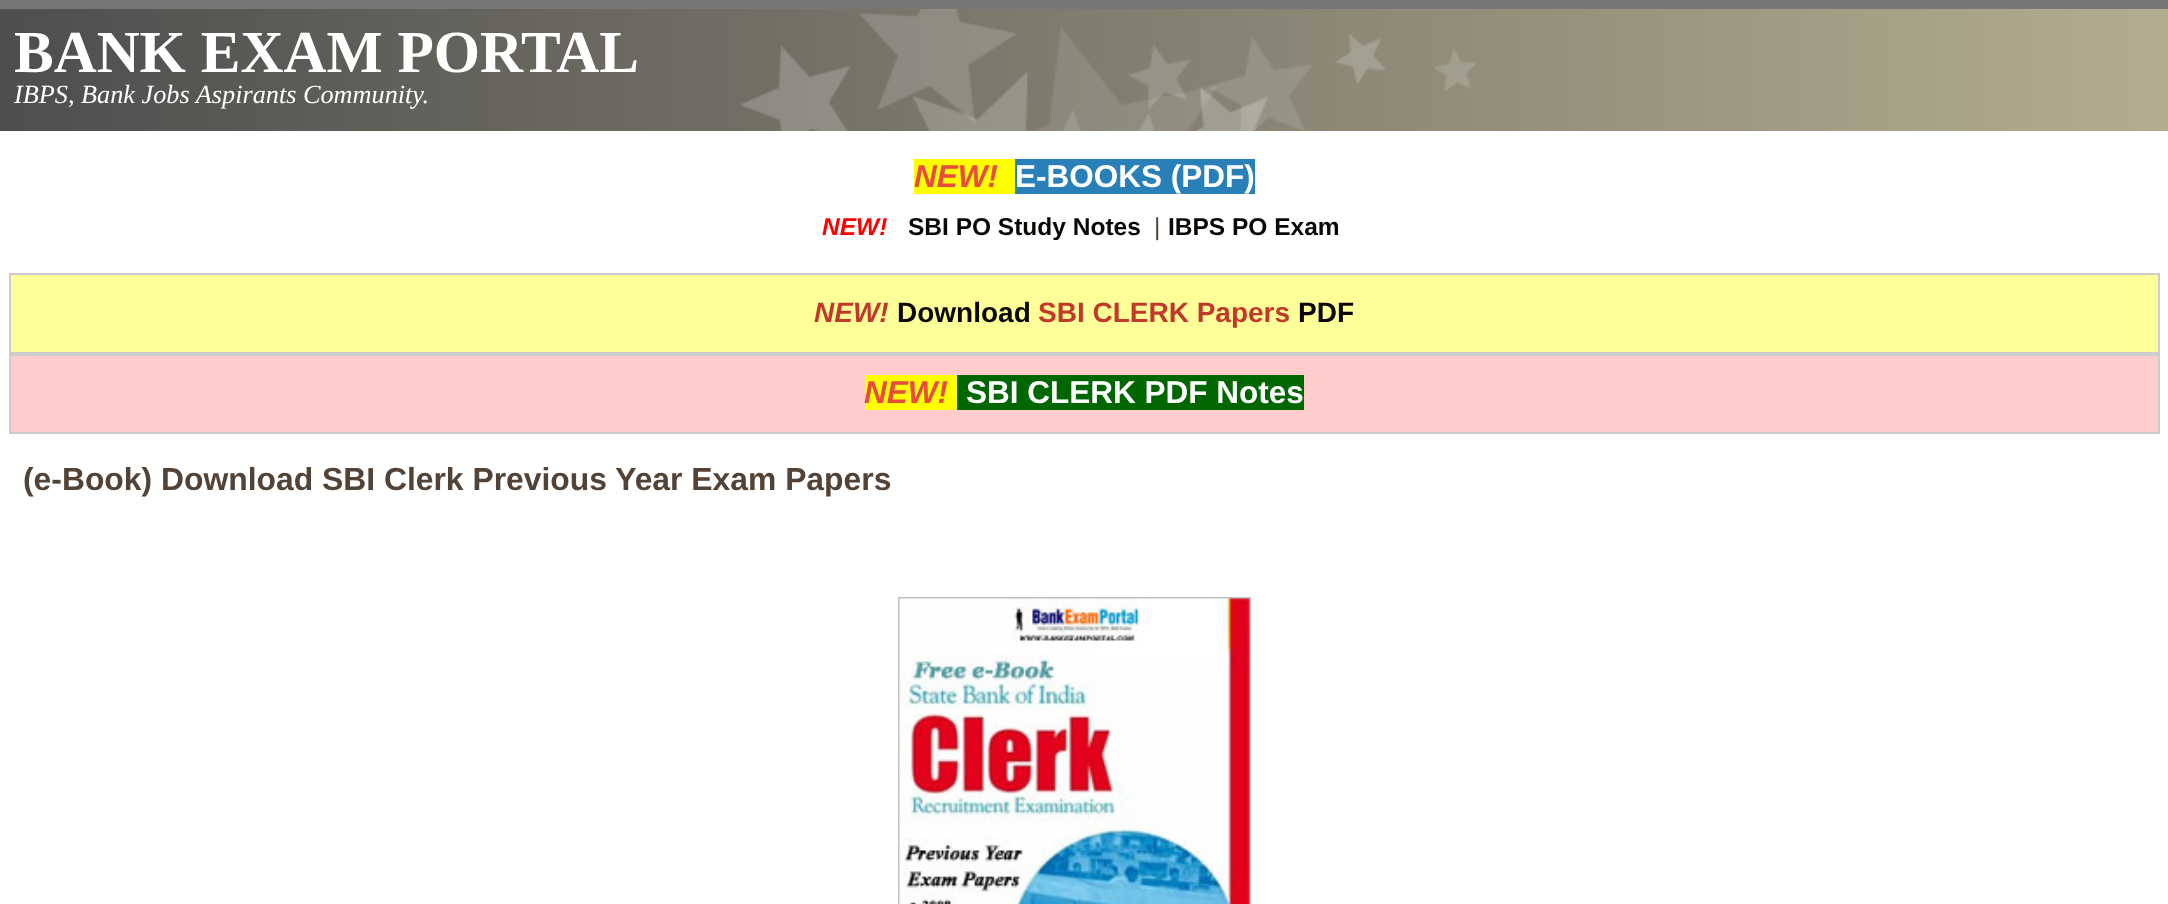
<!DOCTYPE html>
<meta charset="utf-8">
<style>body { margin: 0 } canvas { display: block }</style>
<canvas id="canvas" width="2168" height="904"></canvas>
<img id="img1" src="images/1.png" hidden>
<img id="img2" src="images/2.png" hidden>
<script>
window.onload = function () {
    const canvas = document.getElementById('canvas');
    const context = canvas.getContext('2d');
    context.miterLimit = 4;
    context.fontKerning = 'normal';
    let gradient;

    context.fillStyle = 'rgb(119, 119, 119)';
    context.fillRect(0, 0, 2168, 904);
    context.fillStyle = 'rgb(255, 255, 255)';
    context.fillRect(0, 131, 2168, 773);
    gradient = context.createLinearGradient(0, 70, 2168, 70);
    gradient.addColorStop(0, 'rgb(78, 78, 78)');
    gradient.addColorStop(1, 'rgb(179, 172, 143)');
    context.fillStyle = gradient;
    context.fillRect(0, 9, 2168, 122);
    context.drawImage(document.getElementById('img1'), 740, 9, 737, 122);
    context.fillStyle = 'rgb(255, 255, 0)';
    context.fillRect(914, 159, 101, 35);
    context.fillStyle = 'rgb(41, 128, 185)';
    context.fillRect(1015, 159, 240, 35);
    context.fillStyle = 'rgb(255, 255, 153)';
    context.beginPath();
    context.rect(10, 274, 2149, 79);
    context.fill();
    context.strokeStyle = 'rgb(204, 204, 204)';
    context.lineWidth = 2;
    context.stroke();
    context.fillStyle = 'rgb(255, 204, 204)';
    context.beginPath();
    context.rect(10, 355, 2149, 78);
    context.fill();
    context.stroke();
    context.fillStyle = 'rgb(255, 255, 0)';
    context.fillRect(865, 375, 92, 35);
    context.fillStyle = 'rgb(0, 102, 0)';
    context.fillRect(957, 375, 347, 35);
    context.strokeStyle = 'rgb(192, 192, 192)';
    context.strokeRect(899, 598, 351, 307);
    context.drawImage(document.getElementById('img2'), 899, 598, 351, 306);
    context.font = 'bold 59.5px Liberation Serif';
    context.fillStyle = 'rgb(255, 255, 255)';
    context.fillText('BANK EXAM PORTAL', 14, 72);
    context.font = 'italic 26.25px Liberation Serif';
    context.fillText('IBPS, Bank Jobs Aspirants Community.', 14, 103);
    context.font = 'italic bold 31.5px Liberation Sans';
    context.fillStyle = 'rgb(231, 76, 60)';
    context.fillText('NEW!', 914, 187);
    context.font = 'bold 31.5px Liberation Sans';
    context.fillStyle = 'rgb(255, 255, 255)';
    context.fillText('E-BOOKS (PDF)', 1015, 187);
    context.font = 'italic bold 24.5px Liberation Sans';
    context.fillStyle = 'rgb(255, 0, 0)';
    context.fillText('NEW!', 822, 235);
    context.font = 'bold 24.5px Liberation Sans';
    context.fillStyle = 'rgb(10, 7, 4)';
    context.fillText('SBI PO Study Notes', 908, 235);
    context.font = '24.5px Liberation Sans';
    context.fillStyle = 'rgb(83, 67, 54)';
    context.fillText('|', 1154, 235);
    context.font = 'bold 24.5px Liberation Sans';
    context.fillStyle = 'rgb(10, 7, 4)';
    context.fillText('IBPS PO Exam', 1168, 235);
    context.font = 'italic bold 28px Liberation Sans';
    context.fillStyle = 'rgb(192, 57, 43)';
    context.fillText('NEW!', 814, 322);
    context.font = 'bold 28px Liberation Sans';
    context.fillStyle = 'rgb(10, 7, 4)';
    context.fillText('Download', 897, 322);
    context.fillStyle = 'rgb(192, 57, 43)';
    context.fillText('SBI CLERK Papers', 1038, 322);
    context.fillStyle = 'rgb(10, 7, 4)';
    context.fillText('PDF', 1298, 322);
    context.font = 'italic bold 31.5px Liberation Sans';
    context.fillStyle = 'rgb(231, 76, 60)';
    context.fillText('NEW!', 864, 403);
    context.font = 'bold 31.5px Liberation Sans';
    context.fillStyle = 'rgb(255, 255, 255)';
    context.fillText('SBI CLERK PDF Notes', 966, 403);
    context.font = 'bold 31.85px Liberation Sans';
    context.fillStyle = 'rgb(83, 67, 54)';
    context.fillText('(e-Book) Download SBI Clerk Previous Year Exam Papers', 23, 490);
};
</script>
